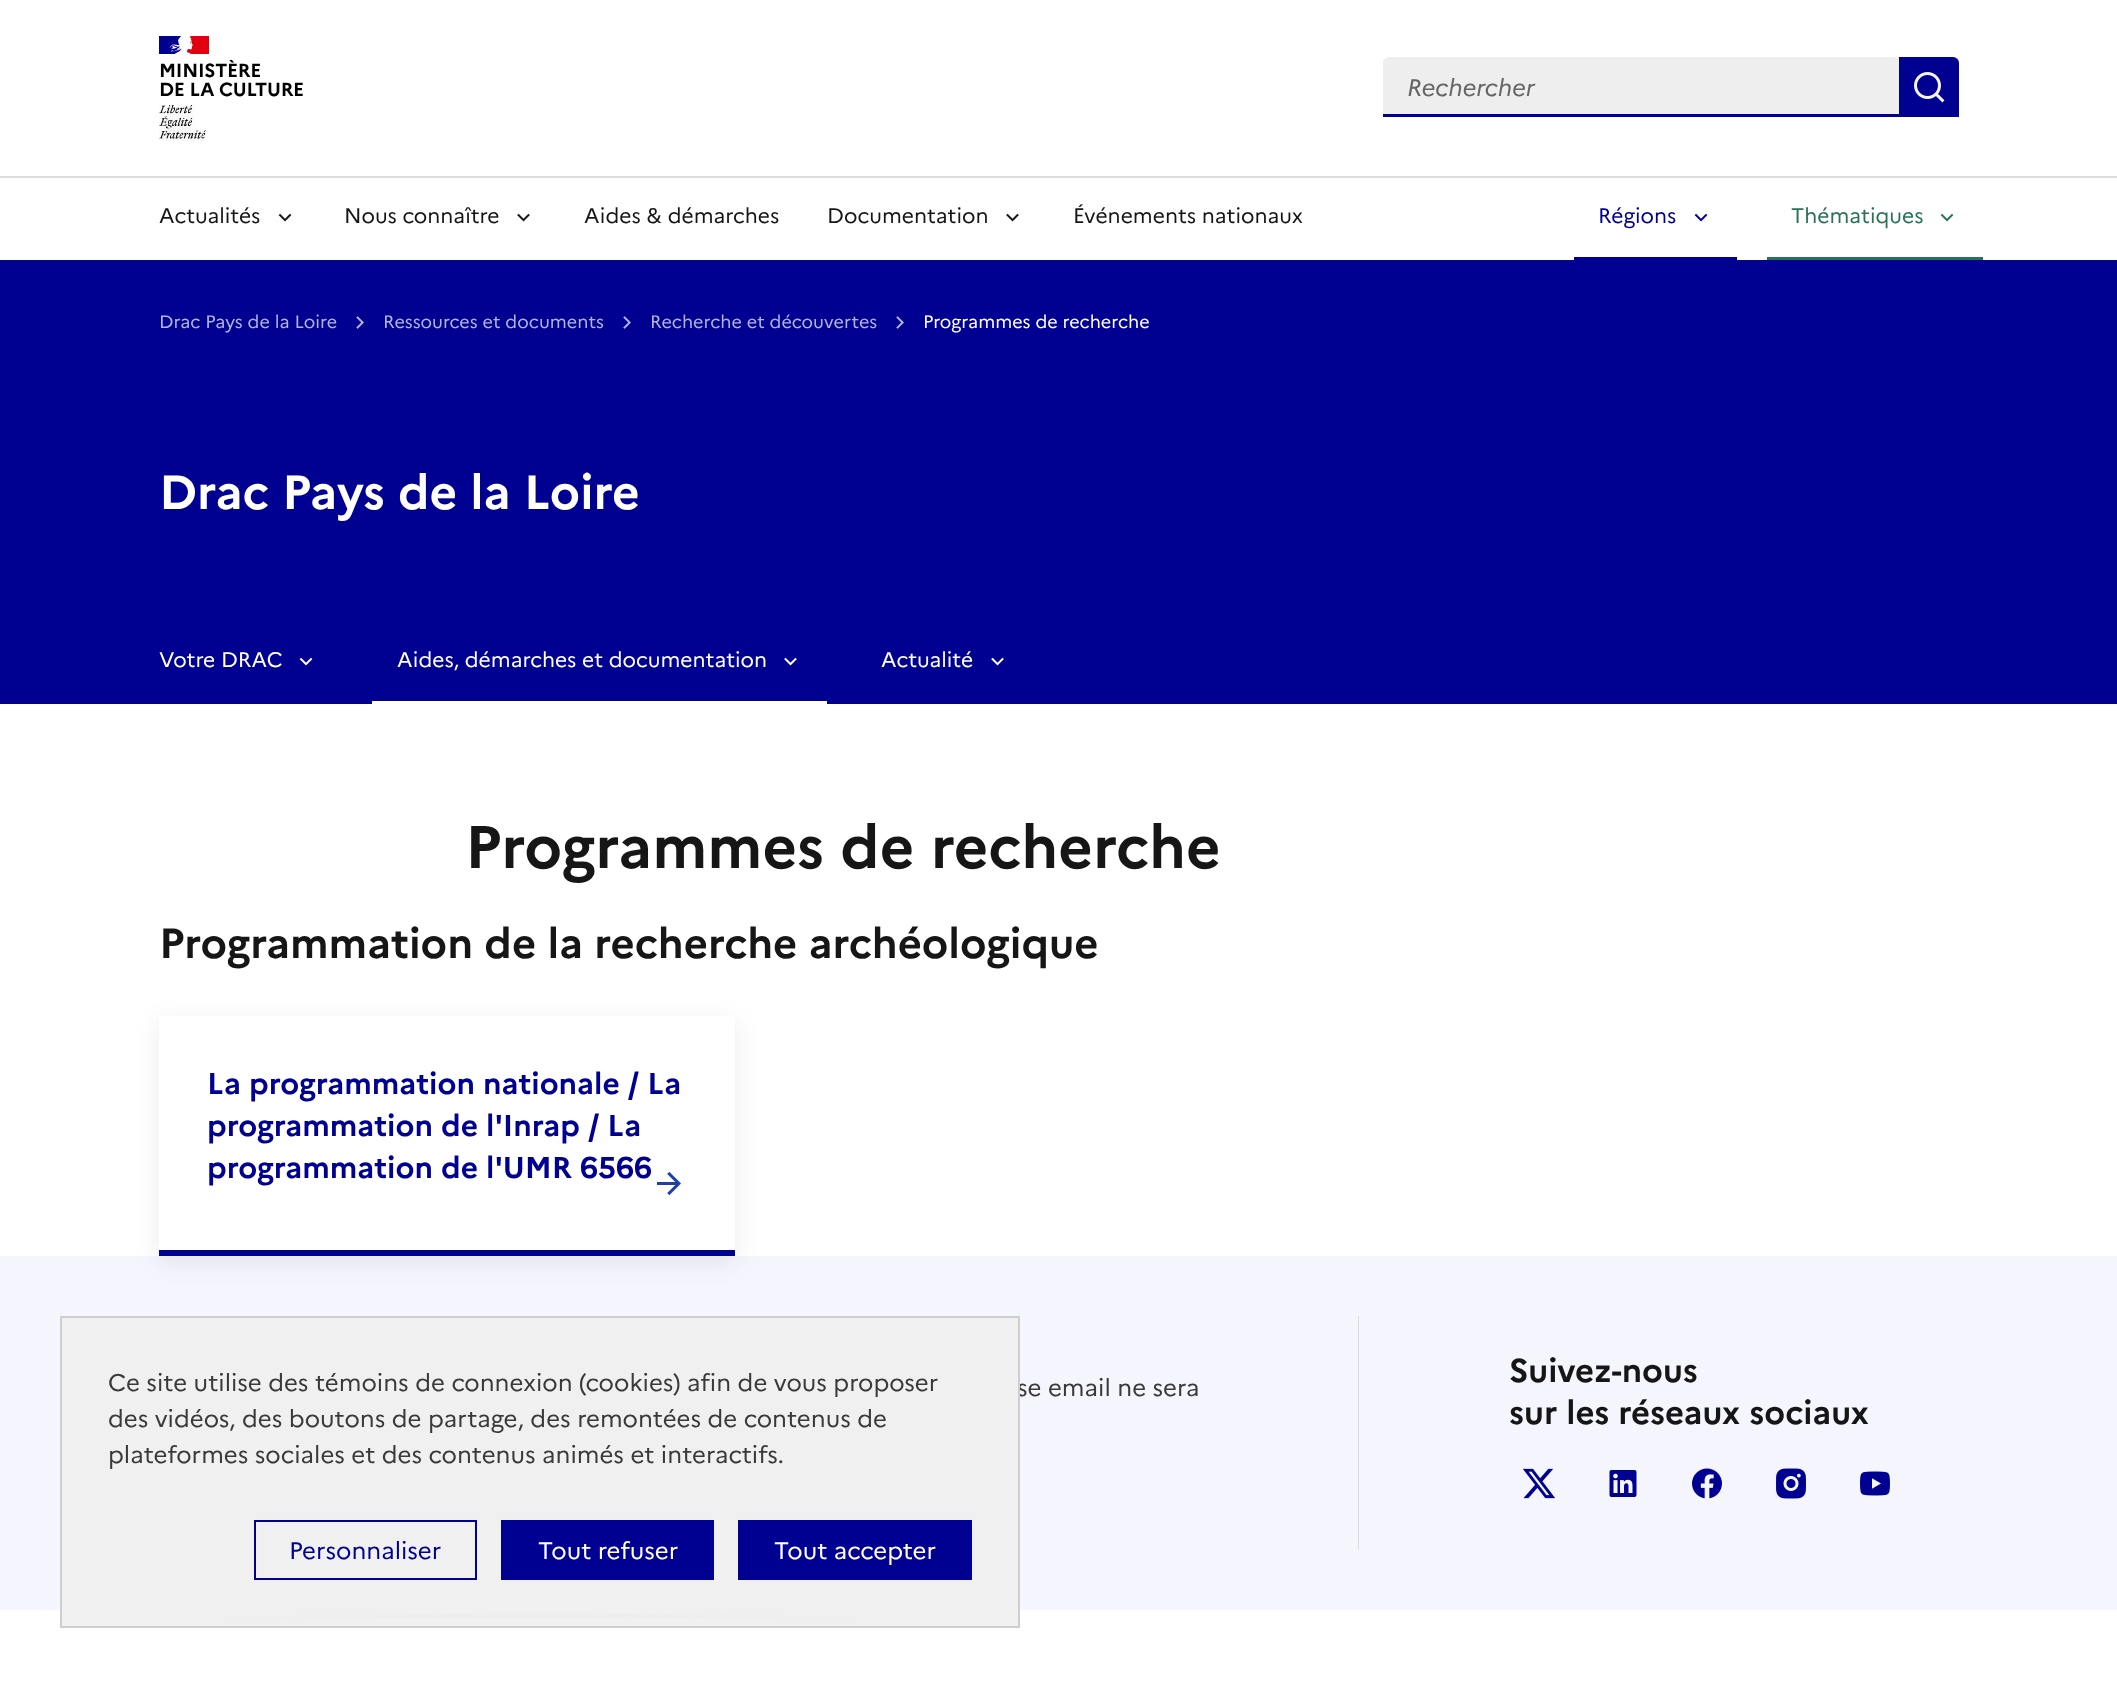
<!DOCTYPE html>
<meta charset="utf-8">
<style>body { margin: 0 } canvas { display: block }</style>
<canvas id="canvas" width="2117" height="1687"></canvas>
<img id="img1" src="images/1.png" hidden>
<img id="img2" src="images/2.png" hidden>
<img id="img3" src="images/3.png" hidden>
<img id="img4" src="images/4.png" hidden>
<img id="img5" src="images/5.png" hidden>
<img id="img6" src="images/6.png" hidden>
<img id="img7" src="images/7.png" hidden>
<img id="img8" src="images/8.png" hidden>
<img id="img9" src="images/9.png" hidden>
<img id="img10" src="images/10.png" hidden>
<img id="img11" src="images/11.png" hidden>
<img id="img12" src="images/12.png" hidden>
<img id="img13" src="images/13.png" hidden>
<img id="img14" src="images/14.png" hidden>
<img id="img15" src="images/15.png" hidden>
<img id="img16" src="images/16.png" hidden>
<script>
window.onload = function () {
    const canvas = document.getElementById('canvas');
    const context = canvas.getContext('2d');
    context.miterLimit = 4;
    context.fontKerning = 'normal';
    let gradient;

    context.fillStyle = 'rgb(255, 255, 255)';
    context.fillRect(0, 0, 2117, 1687);
    context.fillStyle = 'rgb(0, 0, 145)';
    context.fillRect(159, 36, 23, 18);
    context.fillStyle = 'rgb(225, 0, 15)';
    context.fillRect(186, 36, 23, 18);
    context.drawImage(document.getElementById('img1'), 169, 36, 24, 18);
    context.drawImage(document.getElementById('img2'), 159, 105, 47, 36);
    context.fillStyle = 'rgb(238, 238, 238)';
    context.beginPath();
    context.roundRect(1383, 57, 516, 60, [6, 0, 0, 0]);
    context.fill();
    context.fillStyle = 'rgb(0, 0, 145)';
    context.fillRect(1383, 114, 516, 3);
    context.beginPath();
    context.roundRect(1899, 57, 60, 60, [0, 6, 0, 0]);
    context.fill();
    context.drawImage(document.getElementById('img3'), 1914, 72, 31, 31);
    context.fillStyle = 'rgb(221, 221, 221)';
    context.fillRect(0, 176, 2117, 2);
    context.drawImage(document.getElementById('img4'), 278, 213, 14, 9);
    context.drawImage(document.getElementById('img5'), 517, 213, 13, 9);
    context.drawImage(document.getElementById('img5'), 1006, 213, 13, 9);
    context.drawImage(document.getElementById('img6'), 1694, 213, 14, 9);
    context.fillStyle = 'rgb(0, 0, 145)';
    context.fillRect(1574, 257, 163, 3);
    context.drawImage(document.getElementById('img7'), 1940, 213, 14, 9);
    context.fillStyle = 'rgb(41, 114, 84)';
    context.fillRect(1767, 257, 216, 3);
    context.fillStyle = 'rgb(0, 0, 145)';
    context.fillRect(0, 260, 2117, 444);
    context.drawImage(document.getElementById('img8'), 356, 316, 8, 13);
    context.drawImage(document.getElementById('img8'), 623, 316, 8, 13);
    context.drawImage(document.getElementById('img8'), 896, 316, 8, 13);
    context.drawImage(document.getElementById('img9'), 299, 657, 14, 9);
    context.drawImage(document.getElementById('img10'), 784, 657, 13, 9);
    context.fillStyle = 'rgb(255, 255, 255)';
    context.fillRect(372, 701, 455, 3);
    context.drawImage(document.getElementById('img10'), 991, 657, 13, 9);
    context.fillStyle = 'rgb(245, 245, 254)';
    context.fillRect(0, 1256, 2117, 354);
    context.fillStyle = 'rgba(0, 0, 0, 0.08)';
    context.filter = 'blur(12px)';
    context.beginPath();
    context.rect(159, 1022, 576, 240);
    context.fill();
    context.filter = 'none';
    context.fillStyle = 'rgb(255, 255, 255)';
    context.fillRect(159, 1016, 576, 234);
    context.drawImage(document.getElementById('img11'), 657, 1171, 24, 25);
    context.fillStyle = 'rgb(0, 0, 145)';
    context.fillRect(159, 1250, 576, 6);
    context.fillStyle = 'rgb(221, 221, 221)';
    context.beginPath();
    context.moveTo(1358, 1316);
    context.lineTo(1358, 1550);
    context.lineTo(1958, 1550);
    context.lineTo(1359, 1550);
    context.lineTo(1359, 1316);
    context.closePath();
    context.fill();
    context.drawImage(document.getElementById('img12'), 1523, 1468, 32, 31);
    context.drawImage(document.getElementById('img13'), 1609, 1470, 28, 27);
    context.drawImage(document.getElementById('img14'), 1692, 1468, 30, 31);
    context.drawImage(document.getElementById('img15'), 1776, 1468, 30, 31);
    context.drawImage(document.getElementById('img16'), 1860, 1471, 30, 25);
    gradient = context.createRadialGradient(540, 52096, 0, 540, 52096, 480);
    gradient.addColorStop(0, 'rgb(137, 137, 137)');
    gradient.addColorStop(1, 'rgb(240, 240, 240)');
    context.fillStyle = gradient;
    context.beginPath();
    context.rect(62, 1613, 956, 6);
    context.save();
    context.clip();
    context.scale(1, 15 / 480);
    context.fillRect(0, 0, 2117, 53984);
    context.restore();
    gradient = context.createLinearGradient(540, 1601, 540, 1628);
    gradient.addColorStop(0, 'rgba(240, 240, 240, 0)');
    gradient.addColorStop(0.66, 'rgb(240, 240, 240)');
    context.fillStyle = gradient;
    context.fillRect(62, 1614, 956, 12);
    gradient = context.createLinearGradient(540, 1316, 540, 1343);
    gradient.addColorStop(0.33, 'rgb(240, 240, 240)');
    gradient.addColorStop(1, 'rgba(240, 240, 240, 0)');
    context.fillStyle = gradient;
    context.fillRect(62, 1318, 956, 7);
    context.letterSpacing = '-0.25px';
    context.font = 'bold 19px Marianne';
    context.fillStyle = 'rgb(0, 0, 0)';
    context.fillText('MINISTÈRE', 159, 77);
    context.fillText('DE LA CULTURE', 159, 96);
    context.letterSpacing = '0px';
    context.font = 'italic 24px Marianne';
    context.fillStyle = 'rgb(102, 102, 102)';
    context.fillText('Rechercher', 1407, 96);
    context.font = '21px Marianne';
    context.fillStyle = 'rgb(22, 22, 22)';
    context.fillText('Actualités', 159, 223);
    context.fillText('Nous connaître', 344, 223);
    context.fillText('Aides & démarches', 584, 223);
    context.fillText('Documentation', 827, 223);
    context.fillText('Événements nationaux', 1073, 223);
    context.fillStyle = 'rgb(0, 0, 145)';
    context.fillText('Régions', 1598, 223);
    context.fillStyle = 'rgb(41, 114, 84)';
    context.fillText('Thématiques', 1791, 223);
    context.font = '18px Marianne';
    context.fillStyle = 'rgb(179, 179, 222)';
    context.fillText('Drac Pays de la Loire', 159, 328);
    context.fillText('Ressources et documents', 383, 328);
    context.fillText('Recherche et découvertes', 650, 328);
    context.fillStyle = 'rgb(255, 255, 255)';
    context.fillText('Programmes de recherche', 923, 328);
    context.font = 'bold 48px Marianne';
    context.fillText('Drac Pays de la Loire', 159, 509);
    context.font = '21px Marianne';
    context.fillText('Votre DRAC', 159, 667);
    context.fillText('Aides, démarches et documentation', 397, 667);
    context.fillText('Actualité', 881, 667);
    context.font = 'bold 60px Marianne';
    context.fillStyle = 'rgb(22, 22, 22)';
    context.fillText('Programmes de recherche', 465, 868);
    context.font = 'bold 42px Marianne';
    context.fillText('Programmation de la recherche archéologique', 159, 958);
    context.font = 'bold 30px Marianne';
    context.fillStyle = 'rgb(0, 0, 145)';
    context.fillText('La programmation nationale / La', 207, 1094);
    context.fillText('programmation de l\'Inrap / La', 207, 1136);
    context.fillText('programmation de l\'UMR 6566', 207, 1178);
    context.font = '24px Marianne';
    context.fillStyle = 'rgb(58, 58, 58)';
    context.fillText('se email ne sera', 1017, 1396);
    context.font = 'bold 33px Marianne';
    context.fillStyle = 'rgb(22, 22, 22)';
    context.fillText('Suivez-nous', 1509, 1382);
    context.fillText('sur les réseaux sociaux', 1509, 1424);
    context.fillStyle = 'rgb(240, 240, 240)';
    context.fillRect(62, 1325, 956, 288);
    context.strokeStyle = 'rgb(206, 206, 206)';
    context.lineWidth = 2;
    context.strokeRect(61, 1317, 958, 310);
    context.font = '24px Marianne';
    context.fillStyle = 'rgb(58, 58, 58)';
    context.fillText('Ce site utilise des témoins de connexion (cookies) afin de vous proposer', 108, 1391);
    context.fillText('des vidéos, des boutons de partage, des remontées de contenus de', 108, 1427);
    context.fillText('plateformes sociales et des contenus animés et interactifs.', 108, 1463);
    context.strokeStyle = 'rgb(0, 0, 145)';
    context.strokeRect(255, 1521, 221, 58);
    context.fillStyle = 'rgb(0, 0, 145)';
    context.fillText('Personnaliser', 289, 1559);
    context.fillRect(501, 1520, 213, 60);
    context.fillStyle = 'rgb(255, 255, 255)';
    context.fillText('Tout refuser', 538, 1559);
    context.fillStyle = 'rgb(0, 0, 145)';
    context.fillRect(738, 1520, 234, 60);
    context.fillStyle = 'rgb(255, 255, 255)';
    context.fillText('Tout accepter', 774, 1559);
};
</script>
